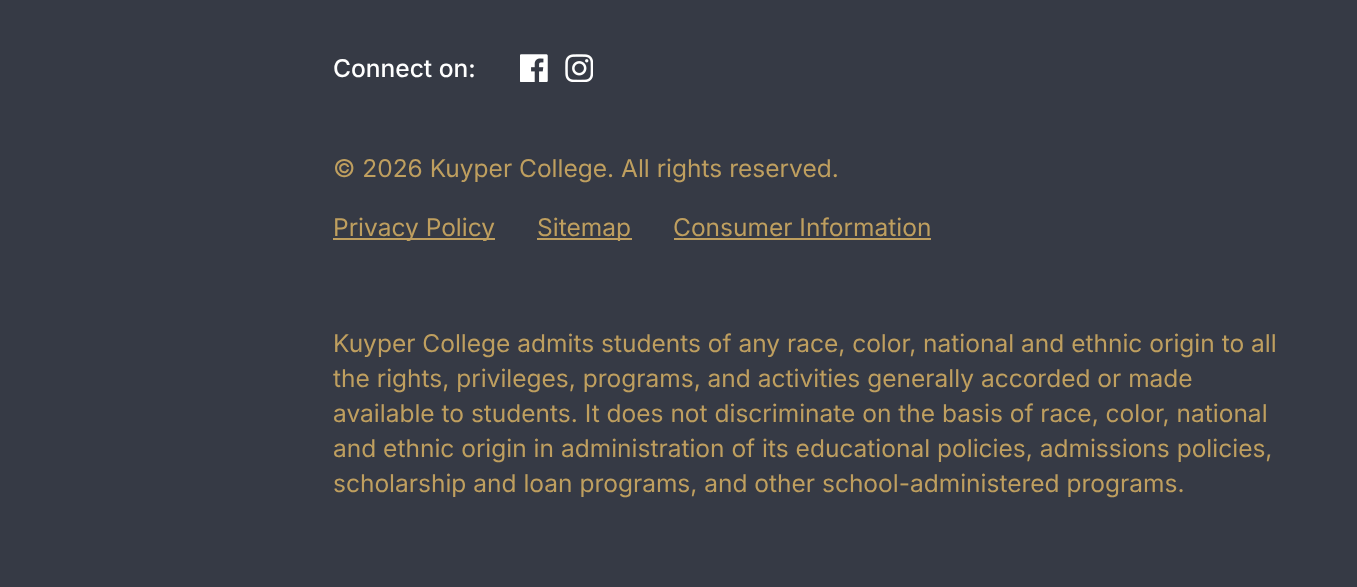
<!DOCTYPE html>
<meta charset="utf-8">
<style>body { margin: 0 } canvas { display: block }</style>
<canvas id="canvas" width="1357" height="587"></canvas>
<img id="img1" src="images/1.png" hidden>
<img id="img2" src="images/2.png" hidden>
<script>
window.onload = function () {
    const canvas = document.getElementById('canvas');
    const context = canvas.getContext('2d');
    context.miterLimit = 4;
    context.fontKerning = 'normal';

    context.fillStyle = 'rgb(54, 58, 69)';
    context.fillRect(0, 0, 1357, 587);
    context.drawImage(document.getElementById('img1'), 520, 54, 28, 28);
    context.drawImage(document.getElementById('img2'), 565, 54, 28, 28);
    context.fillStyle = 'rgb(191, 159, 95)';
    context.fillRect(333, 238, 162, 2);
    context.fillRect(537, 238, 95, 2);
    context.fillRect(674, 238, 257, 2);
    context.font = '500 24.5px Inter';
    context.fillStyle = 'rgb(255, 255, 255)';
    context.fillText('Connect on:', 333, 77);
    context.font = '24.5px Inter';
    context.fillStyle = 'rgb(191, 159, 95)';
    context.fillText('© 2026 Kuyper College. All rights reserved.', 333, 177);
    context.fillText('Privacy Policy', 333, 236);
    context.fillText('Sitemap', 537, 236);
    context.fillText('Consumer Information', 673, 236);
    context.fillText('Kuyper College admits students of any race, color, national and ethnic origin to all', 333, 352);
    context.fillText('the rights, privileges, programs, and activities generally accorded or made', 333, 387);
    context.fillText('available to students. It does not discriminate on the basis of race, color, national', 333, 422);
    context.fillText('and ethnic origin in administration of its educational policies, admissions policies,', 333, 457);
    context.fillText('scholarship and loan programs, and other school-administered programs.', 333, 492);
};
</script>
